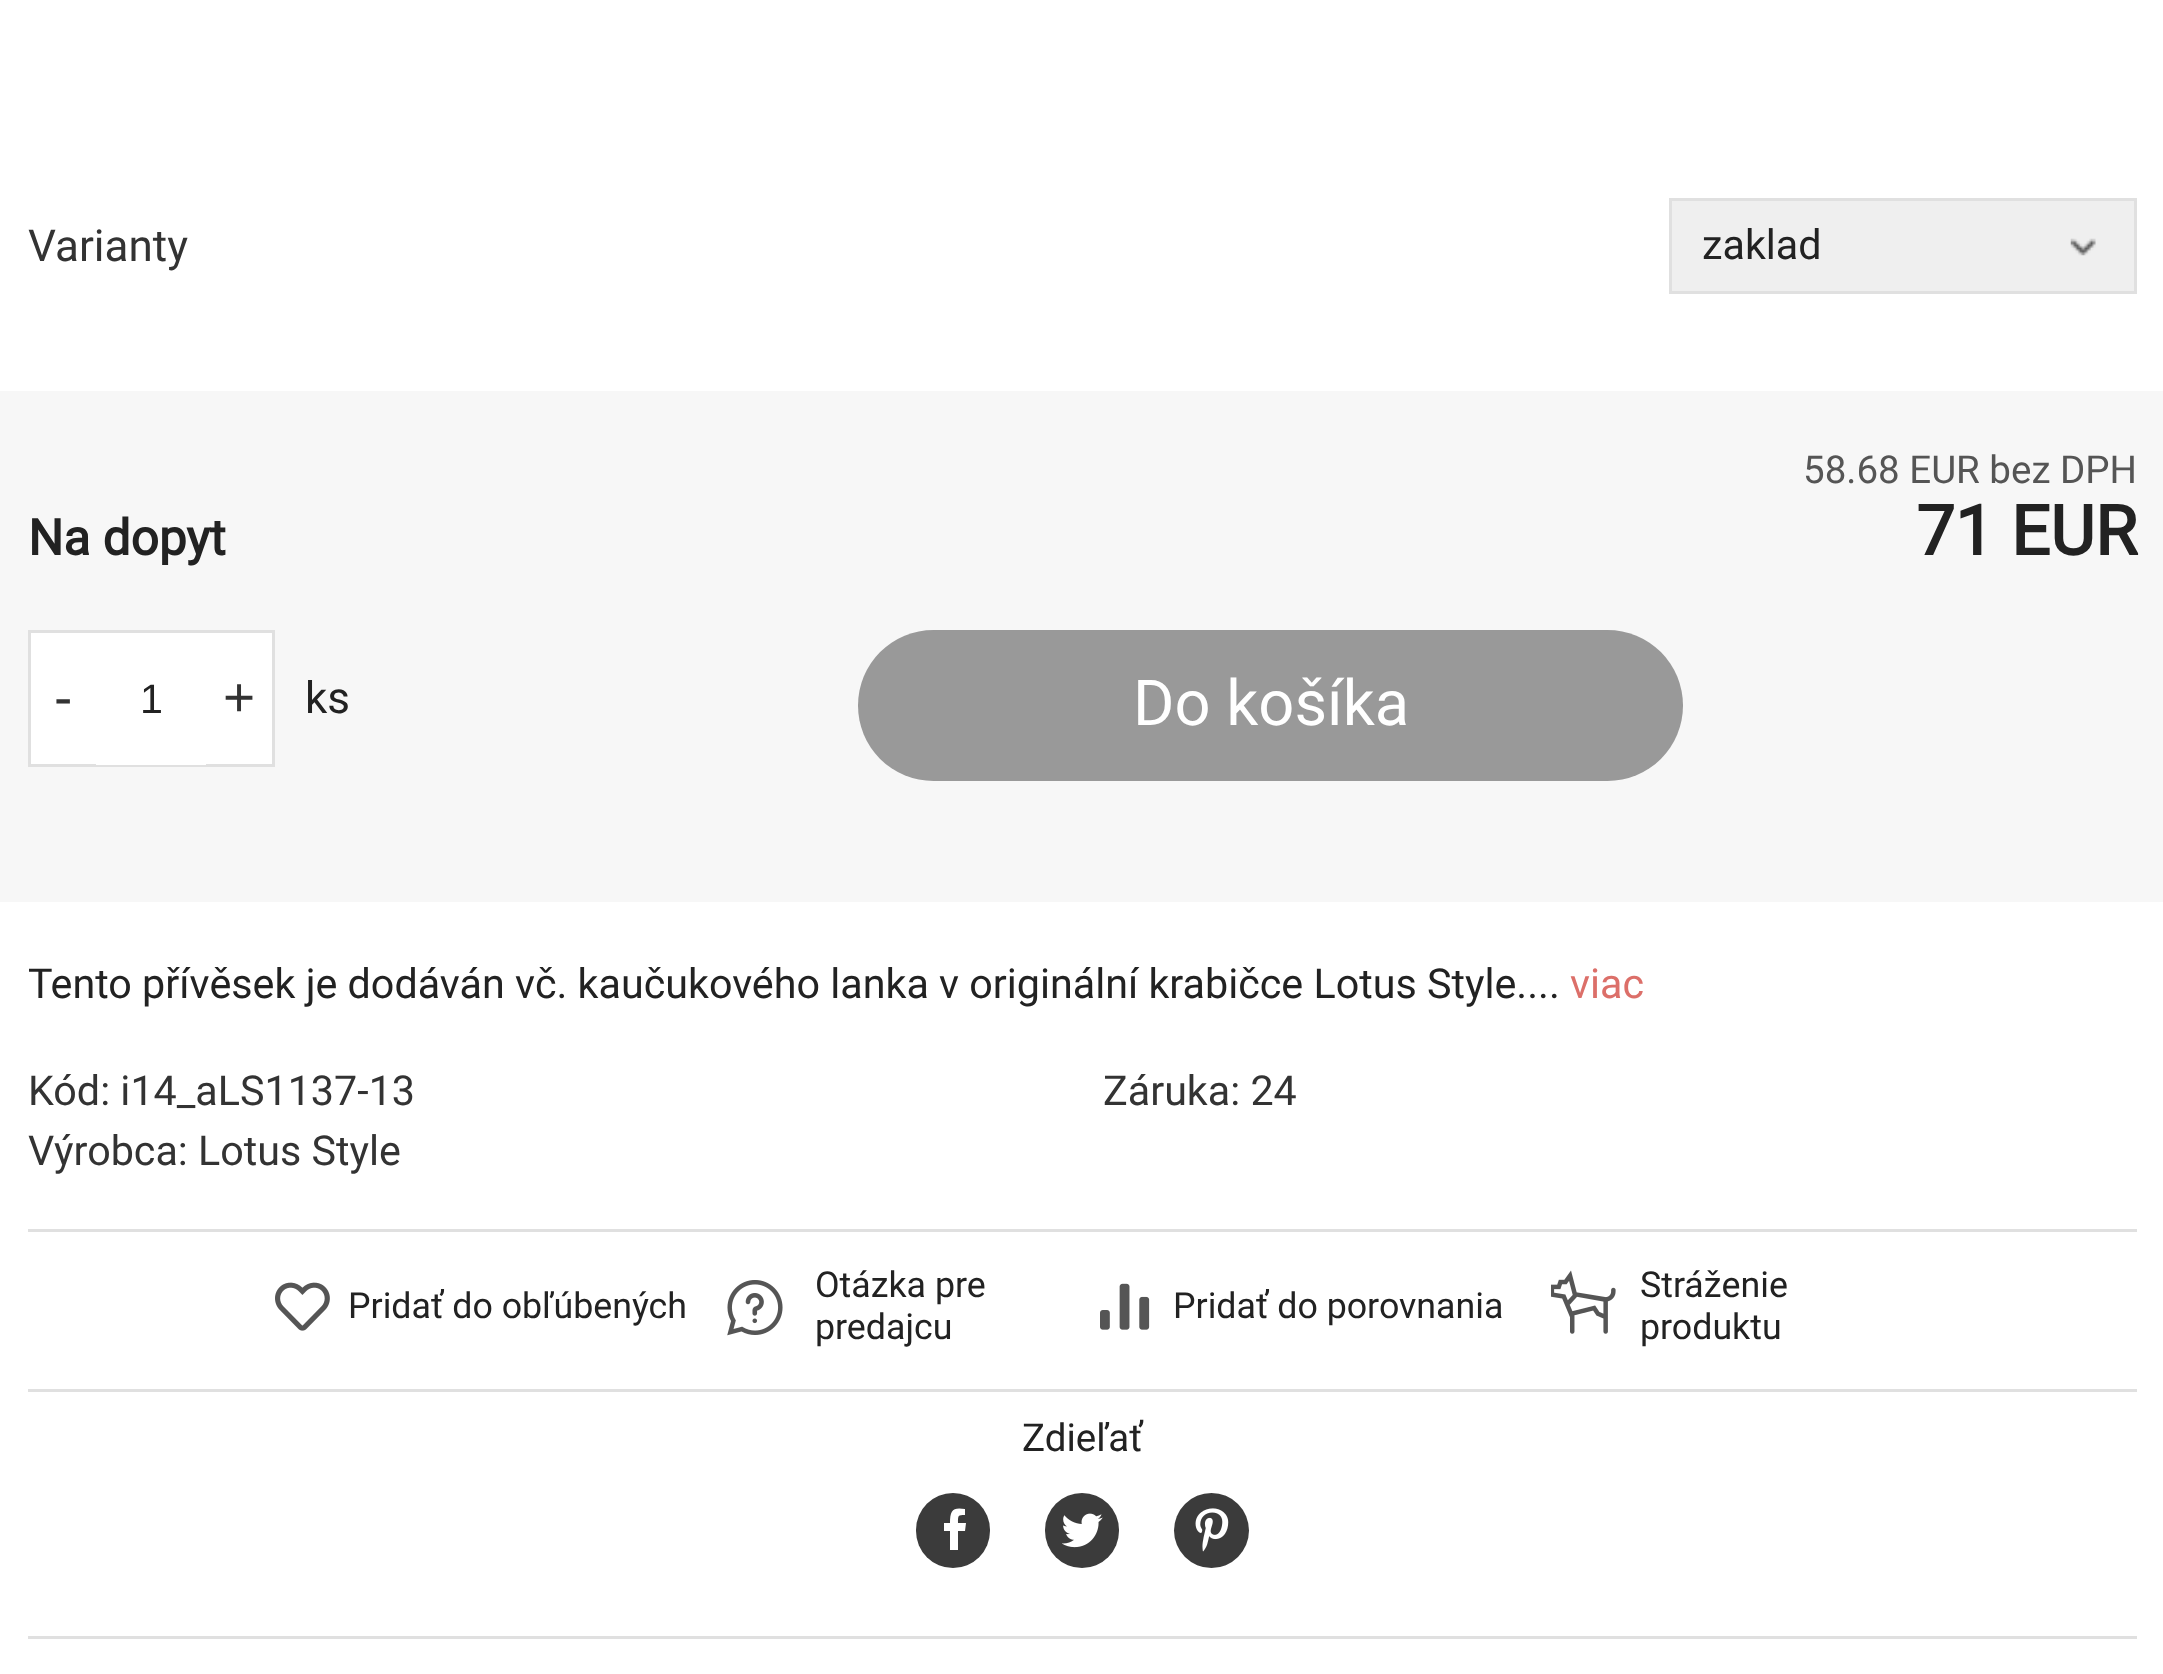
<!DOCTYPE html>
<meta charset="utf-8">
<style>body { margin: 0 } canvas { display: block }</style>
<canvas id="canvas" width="2163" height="1674"></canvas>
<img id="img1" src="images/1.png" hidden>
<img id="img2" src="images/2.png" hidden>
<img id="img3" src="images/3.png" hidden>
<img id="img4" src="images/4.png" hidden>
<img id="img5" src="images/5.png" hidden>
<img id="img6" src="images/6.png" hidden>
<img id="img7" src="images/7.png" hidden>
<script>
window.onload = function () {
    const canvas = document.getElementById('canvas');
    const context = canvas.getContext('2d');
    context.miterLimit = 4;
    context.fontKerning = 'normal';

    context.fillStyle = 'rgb(255, 255, 255)';
    context.fillRect(0, 0, 2163, 1674);
    context.fillStyle = 'rgb(239, 239, 239)';
    context.fillRect(1672, 201, 462, 90);
    context.drawImage(document.getElementById('img1'), 2070, 238, 26, 18);
    context.strokeStyle = 'rgb(224, 224, 224)';
    context.lineWidth = 3;
    context.strokeRect(1670.5, 199.5, 465, 93);
    context.fillStyle = 'rgb(247, 247, 247)';
    context.fillRect(0, 391, 2163, 511);
    context.fillStyle = 'rgb(255, 255, 255)';
    context.beginPath();
    context.rect(29.5, 631.5, 244, 134);
    context.fill();
    context.stroke();
    context.fillRect(96, 764, 110, 1);
    context.fillStyle = 'rgb(153, 153, 153)';
    context.beginPath();
    context.roundRect(858, 630, 825, 151, 75.5);
    context.fill();
    context.fillStyle = 'rgb(224, 224, 224)';
    context.fillRect(28, 1229, 2109, 3);
    context.fillRect(28, 1389, 2109, 3);
    context.drawImage(document.getElementById('img2'), 275, 1282, 55, 49);
    context.drawImage(document.getElementById('img3'), 727, 1280, 56, 56);
    context.drawImage(document.getElementById('img4'), 1100, 1283, 50, 47);
    context.drawImage(document.getElementById('img5'), 1551, 1270, 65, 64);
    context.fillRect(28, 1636, 2109, 3);
    context.fillStyle = 'rgb(59, 59, 59)';
    context.beginPath();
    context.roundRect(916, 1493, 74, 75, 37);
    context.fill();
    context.fillStyle = 'rgb(255, 255, 255)';
    context.beginPath();
    context.moveTo(966, 1523);
    context.lineTo(958, 1523);
    context.bezierCurveTo(958, 1515, 958, 1515, 965, 1515);
    context.lineTo(965, 1509);
    context.bezierCurveTo(953, 1507, 950, 1510, 950, 1523);
    context.lineTo(944, 1523);
    context.lineTo(944, 1531);
    context.lineTo(950, 1531);
    context.lineTo(950, 1550);
    context.lineTo(958, 1550);
    context.lineTo(958, 1531);
    context.lineTo(965, 1531);
    context.closePath();
    context.fill();
    context.fillStyle = 'rgb(59, 59, 59)';
    context.beginPath();
    context.roundRect(1045, 1493, 74, 75, 37);
    context.fill();
    context.drawImage(document.getElementById('img6'), 1062, 1513, 41, 35);
    context.beginPath();
    context.arc(1211.5, 1530.5, 37.5, 0, 2 * Math.PI);
    context.fill();
    context.drawImage(document.getElementById('img7'), 1195, 1508, 34, 44);
    context.font = '44px Roboto';
    context.fillStyle = 'rgb(51, 51, 51)';
    context.fillText('Varianty', 28, 261);
    context.font = '41.25px Roboto';
    context.fillStyle = 'rgb(34, 34, 34)';
    context.fillText('zaklad', 1702, 259);
    context.font = '38.5px Roboto';
    context.fillStyle = 'rgb(85, 85, 85)';
    context.fillText('58.68 EUR bez DPH', 1803, 483);
    context.font = 'bold 49.5px Roboto';
    context.fillStyle = 'rgb(34, 34, 34)';
    context.fillText('Na dopyt', 28, 555);
    context.font = 'bold 69px Roboto';
    context.fillText('71 EUR', 1916, 555);
    context.font = '55px Liberation Sans';
    context.fillStyle = 'rgb(51, 51, 51)';
    context.fillText('-', 54, 716);
    context.font = '41.25px Liberation Sans';
    context.fillStyle = 'rgb(34, 34, 34)';
    context.fillText('1', 140, 713);
    context.font = '55px Liberation Sans';
    context.fillStyle = 'rgb(51, 51, 51)';
    context.fillText('+', 223, 716);
    context.font = '44px Roboto';
    context.fillStyle = 'rgb(34, 34, 34)';
    context.fillText('ks', 305, 713);
    context.font = '63.25px Roboto';
    context.fillStyle = 'rgb(255, 255, 255)';
    context.fillText('Do košíka', 1133, 725);
    context.font = '41.25px Roboto';
    context.fillStyle = 'rgb(34, 34, 34)';
    context.fillText('Tento přívěsek je dodáván vč. kaučukového lanka v originální krabičce Lotus Style....', 28, 998);
    context.fillStyle = 'rgb(220, 111, 105)';
    context.fillText('viac', 1570, 998);
    context.fillStyle = 'rgb(51, 51, 51)';
    context.fillText('Kód: i14_aLS1137-13', 28, 1105);
    context.fillText('Záruka: 24', 1103, 1105);
    context.fillText('Výrobca: Lotus Style', 28, 1165);
    context.font = '35.75px Roboto';
    context.fillStyle = 'rgb(34, 34, 34)';
    context.fillText('Pridať do obľúbených', 348, 1318);
    context.fillText('Otázka pre', 815, 1297);
    context.fillText('predajcu', 815, 1339);
    context.fillText('Pridať do porovnania', 1173, 1318);
    context.fillText('Stráženie', 1640, 1297);
    context.fillText('produktu', 1640, 1339);
    context.font = '38.5px Roboto';
    context.fillText('Zdieľať', 1022, 1451);
};
</script>
